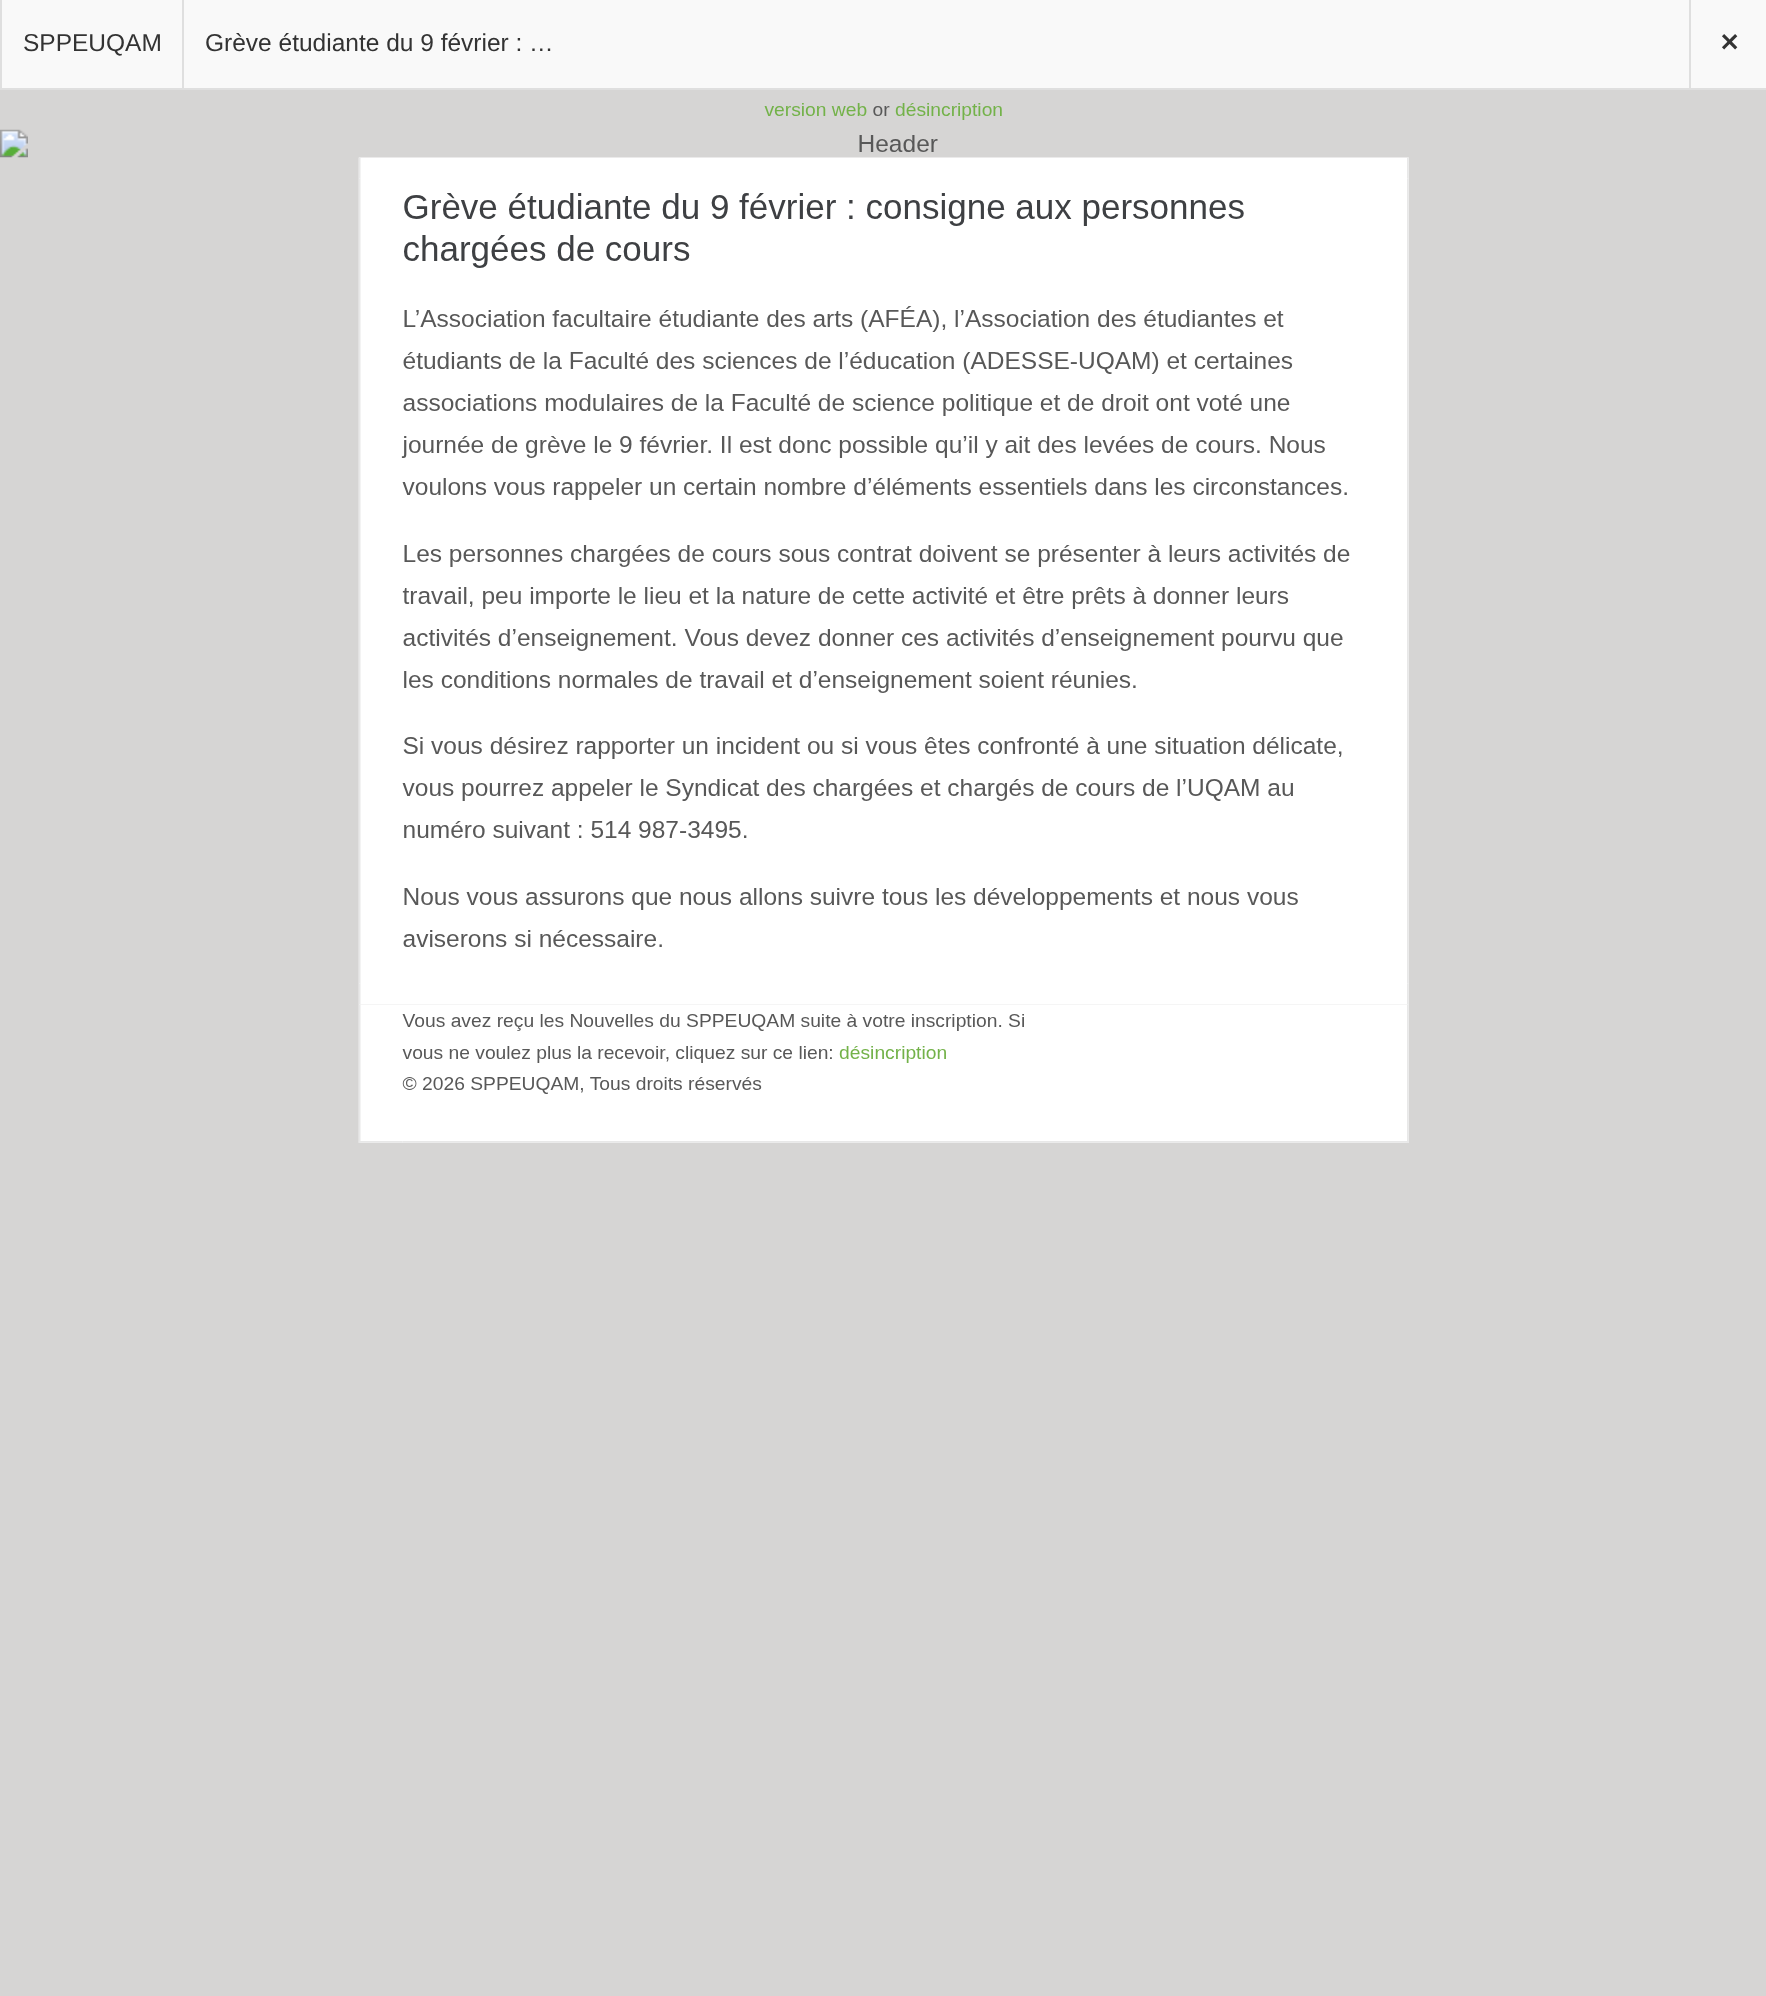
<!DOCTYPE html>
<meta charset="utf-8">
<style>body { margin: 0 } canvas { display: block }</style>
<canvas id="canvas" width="1766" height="1996"></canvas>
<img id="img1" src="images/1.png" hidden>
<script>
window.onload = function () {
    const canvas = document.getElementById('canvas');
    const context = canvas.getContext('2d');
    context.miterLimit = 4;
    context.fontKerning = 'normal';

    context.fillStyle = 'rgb(255, 255, 255)';
    context.fillRect(0, 0, 1766, 1996);
    context.fillStyle = 'rgb(249, 249, 249)';
    context.fillRect(2, 0, 1764, 88);
    context.fillStyle = 'rgb(223, 223, 223)';
    context.fillRect(0, 88, 1766, 2);
    context.fillRect(0, 0, 2, 88);
    context.fillRect(182, 0, 2, 88);
    context.fillRect(1689, 0, 2, 88);
    context.drawImage(document.getElementById('img1'), 0, 90, 1766, 1906);
    context.font = '24.5px Liberation Sans';
    context.fillStyle = 'rgb(51, 51, 51)';
    context.fillText('SPPEUQAM', 23, 51);
    context.fillText('Grève étudiante du 9 février : …', 205, 51);
    context.font = 'bold 24.5px DejaVu Sans';
    context.fillText('✕', 1719, 51);
};
</script>
